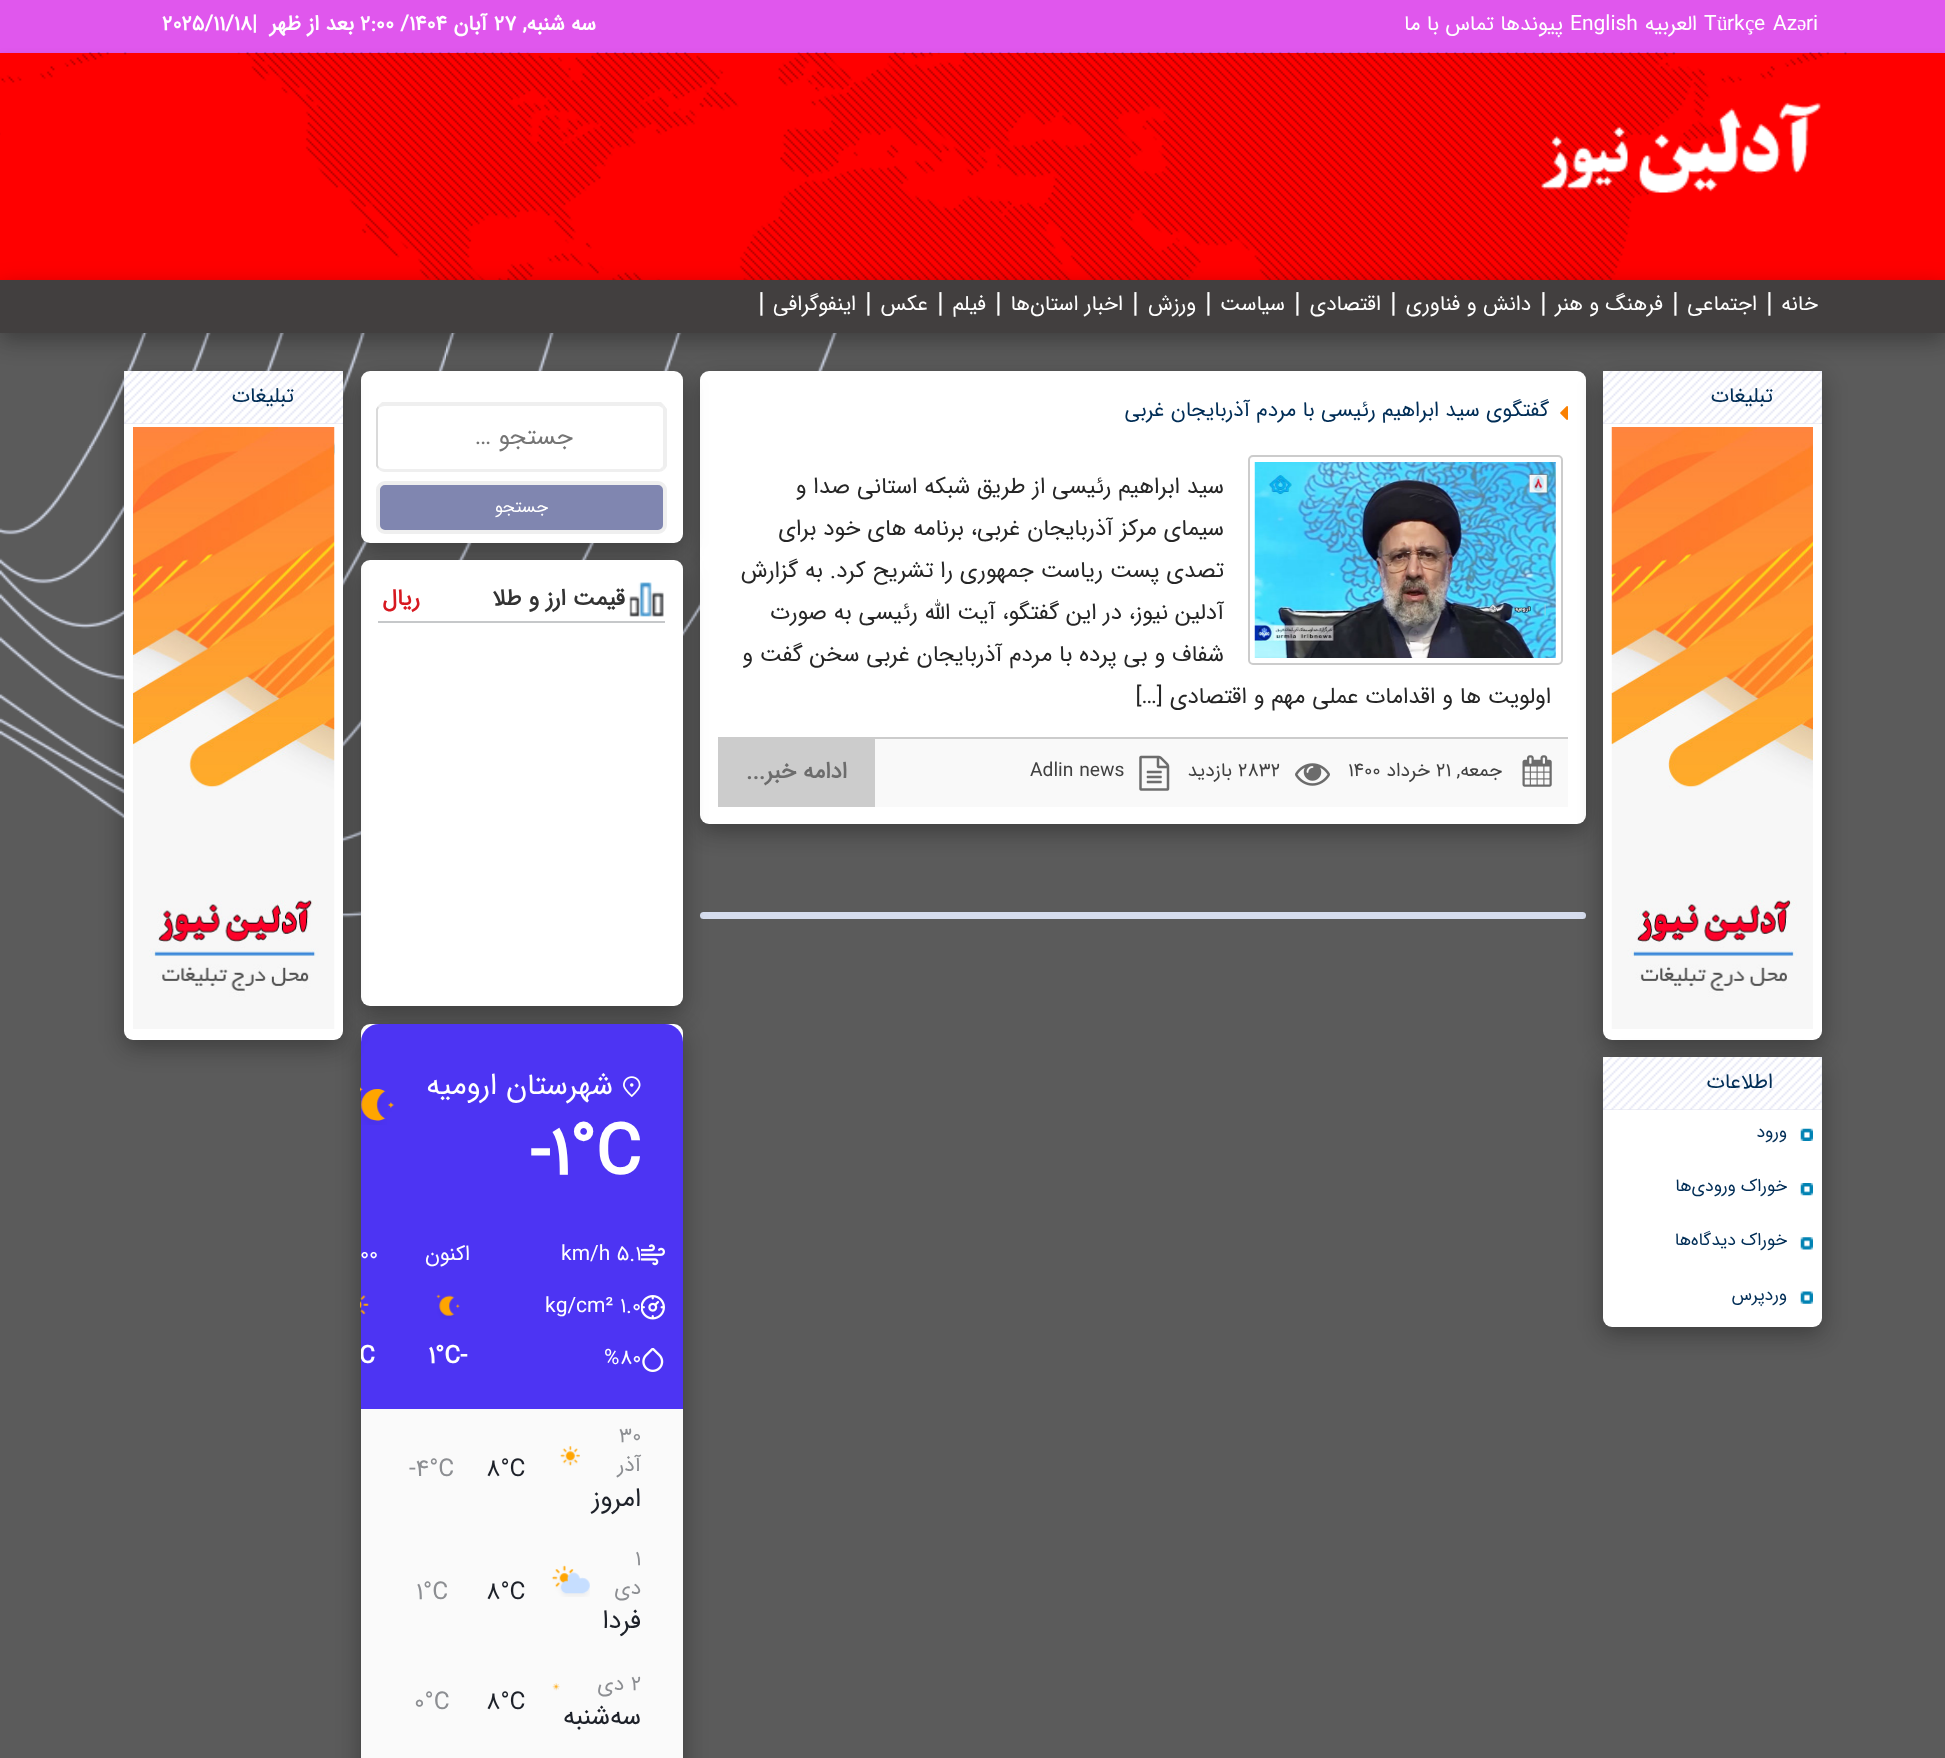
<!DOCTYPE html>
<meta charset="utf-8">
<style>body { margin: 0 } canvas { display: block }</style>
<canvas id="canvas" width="1945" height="1758"></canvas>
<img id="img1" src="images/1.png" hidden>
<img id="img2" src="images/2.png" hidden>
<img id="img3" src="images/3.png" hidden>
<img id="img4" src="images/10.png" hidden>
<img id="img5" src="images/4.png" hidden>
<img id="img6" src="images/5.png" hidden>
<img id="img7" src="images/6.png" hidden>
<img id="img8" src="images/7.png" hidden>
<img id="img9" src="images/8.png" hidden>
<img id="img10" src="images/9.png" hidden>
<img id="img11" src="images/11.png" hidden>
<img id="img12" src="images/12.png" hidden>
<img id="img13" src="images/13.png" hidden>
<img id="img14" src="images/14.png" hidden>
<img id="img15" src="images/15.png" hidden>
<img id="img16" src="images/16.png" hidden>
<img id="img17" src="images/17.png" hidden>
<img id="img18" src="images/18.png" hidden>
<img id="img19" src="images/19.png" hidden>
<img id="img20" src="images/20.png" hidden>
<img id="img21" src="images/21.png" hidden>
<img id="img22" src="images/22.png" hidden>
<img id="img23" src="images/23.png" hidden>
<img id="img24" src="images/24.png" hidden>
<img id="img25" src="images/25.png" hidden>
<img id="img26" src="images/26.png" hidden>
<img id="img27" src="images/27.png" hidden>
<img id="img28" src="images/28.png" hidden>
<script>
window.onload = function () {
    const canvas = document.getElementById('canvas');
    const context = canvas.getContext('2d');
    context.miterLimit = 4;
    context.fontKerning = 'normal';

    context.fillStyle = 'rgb(91, 91, 91)';
    context.fillRect(0, 0, 1945, 1758);
    context.drawImage(document.getElementById('img1'), 0, 333, 837, 585);
    context.fillStyle = 'rgb(224, 87, 237)';
    context.fillRect(0, 0, 1945, 53);
    context.fillStyle = 'rgba(0, 0, 0, 0.23)';
    context.filter = 'blur(5px)';
    context.beginPath();
    context.rect(0, 58, 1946, 227);
    context.fill();
    context.filter = 'none';
    context.fillStyle = 'rgb(255, 0, 0)';
    context.fillRect(0, 53, 1945, 227);
    context.drawImage(document.getElementById('img2'), 0, 52, 1847, 228);
    context.drawImage(document.getElementById('img3'), 1541, 102, 280, 91);
    context.fillStyle = 'rgba(0, 0, 0, 0.15)';
    context.filter = 'blur(13px)';
    context.beginPath();
    context.rect(0, 287, 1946, 53);
    context.fill();
    context.filter = 'none';
    context.fillStyle = 'rgba(0, 0, 0, 0.18)';
    context.filter = 'blur(9.5px)';
    context.beginPath();
    context.rect(0, 289, 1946, 52);
    context.fill();
    context.filter = 'none';
    context.fillStyle = 'rgb(66, 63, 63)';
    context.fillRect(0, 280, 1945, 53);
    context.fillStyle = 'rgba(0, 0, 0, 0.15)';
    context.filter = 'blur(13px)';
    context.beginPath();
    context.roundRect(700, 378, 886, 453, 9);
    context.fill();
    context.filter = 'none';
    context.fillStyle = 'rgba(0, 0, 0, 0.18)';
    context.filter = 'blur(9.5px)';
    context.beginPath();
    context.roundRect(700, 380, 886, 453, 9);
    context.fill();
    context.filter = 'none';
    context.fillStyle = 'rgb(255, 255, 255)';
    context.beginPath();
    context.roundRect(700, 371, 886, 453, 9);
    context.fill();
    context.drawImage(document.getElementById('img4'), 1560, 406, 8, 14);
    context.fillStyle = 'rgb(249, 249, 249)';
    context.fillRect(875, 739, 693, 68);
    context.fillStyle = 'rgb(204, 204, 204)';
    context.fillRect(718, 737, 850, 2);
    context.fillStyle = 'rgb(214, 221, 238)';
    context.beginPath();
    context.roundRect(700, 912, 886, 7, 3.5);
    context.fill();
    context.fillStyle = 'rgba(0, 0, 0, 0.15)';
    context.filter = 'blur(13px)';
    context.beginPath();
    context.roundRect(1603, 378, 219, 669, 9);
    context.fill();
    context.filter = 'none';
    context.fillStyle = 'rgba(0, 0, 0, 0.18)';
    context.filter = 'blur(9.5px)';
    context.beginPath();
    context.roundRect(1603, 380, 219, 668, 9);
    context.fill();
    context.filter = 'none';
    context.fillStyle = 'rgb(255, 255, 255)';
    context.beginPath();
    context.roundRect(1603, 371, 219, 669, 9);
    context.fill();
    context.fillStyle = 'rgb(222, 224, 236)';
    context.fillRect(1603, 371, 219, 53);
    context.drawImage(document.getElementById('img5'), 1603, 371, 219, 53);
    context.drawImage(document.getElementById('img6'), 1611, 427, 202, 602);
    context.fillStyle = 'rgba(0, 0, 0, 0.15)';
    context.filter = 'blur(13px)';
    context.beginPath();
    context.roundRect(1603, 1064, 219, 270, 9);
    context.fill();
    context.filter = 'none';
    context.fillStyle = 'rgba(0, 0, 0, 0.18)';
    context.filter = 'blur(9.5px)';
    context.beginPath();
    context.roundRect(1603, 1066, 219, 269, 9);
    context.fill();
    context.filter = 'none';
    context.fillStyle = 'rgb(255, 255, 255)';
    context.beginPath();
    context.roundRect(1603, 1057, 219, 270, 9);
    context.fill();
    context.fillStyle = 'rgb(222, 224, 236)';
    context.fillRect(1603, 1057, 219, 53);
    context.drawImage(document.getElementById('img5'), 1603, 1057, 219, 53);
    context.drawImage(document.getElementById('img7'), 1800, 1128, 13, 13);
    context.drawImage(document.getElementById('img8'), 1800, 1183, 13, 13);
    context.drawImage(document.getElementById('img9'), 1800, 1237, 13, 13);
    context.drawImage(document.getElementById('img10'), 1800, 1291, 13, 13);
    context.beginPath();
    context.roundRect(1249, 456, 313, 208, 4);
    context.strokeStyle = 'rgb(204, 204, 204)';
    context.lineWidth = 2;
    context.stroke();
    context.drawImage(document.getElementById('img11'), 1254, 462, 302, 196);
    context.drawImage(document.getElementById('img12'), 1522, 755, 30, 32);
    context.drawImage(document.getElementById('img13'), 1295, 763, 35, 23);
    context.drawImage(document.getElementById('img14'), 1139, 755, 31, 36);
    context.fillStyle = 'rgb(204, 204, 204)';
    context.fillRect(718, 739, 157, 68);
    context.fillStyle = 'rgba(0, 0, 0, 0.15)';
    context.filter = 'blur(13px)';
    context.beginPath();
    context.roundRect(361, 378, 322, 172, 9);
    context.fill();
    context.filter = 'none';
    context.fillStyle = 'rgba(0, 0, 0, 0.18)';
    context.filter = 'blur(9.5px)';
    context.beginPath();
    context.roundRect(361, 380, 322, 171, 9);
    context.fill();
    context.filter = 'none';
    context.fillStyle = 'rgb(255, 255, 255)';
    context.beginPath();
    context.roundRect(361, 371, 322, 172, 9);
    context.fill();
    context.fillStyle = 'rgb(239, 239, 239)';
    context.beginPath();
    context.moveTo(385, 406);
    context.bezierCurveTo(382, 406, 380, 407, 379, 408);
    context.lineTo(378, 406);
    context.bezierCurveTo(379, 405, 381, 403, 382, 402);
    context.lineTo(661, 402);
    context.lineTo(664, 405);
    context.lineTo(662, 408);
    context.bezierCurveTo(661, 407, 660, 406, 658, 406);
    context.closePath();
    context.fill();
    context.beginPath();
    context.moveTo(667, 466);
    context.bezierCurveTo(666, 468, 665, 469, 664, 470);
    context.lineTo(662, 467);
    context.bezierCurveTo(663, 467, 663, 465, 663, 464);
    context.lineTo(663, 411);
    context.bezierCurveTo(663, 410, 663, 408, 662, 408);
    context.lineTo(664, 405);
    context.lineTo(667, 409);
    context.closePath();
    context.fill();
    context.beginPath();
    context.moveTo(664, 470);
    context.bezierCurveTo(663, 471, 660, 472, 658, 472);
    context.lineTo(385, 472);
    context.bezierCurveTo(382, 472, 380, 471, 378, 469);
    context.lineTo(379, 467);
    context.bezierCurveTo(381, 468, 383, 469, 385, 469);
    context.lineTo(660, 469);
    context.lineTo(662, 467);
    context.closePath();
    context.fill();
    context.fillStyle = 'rgb(218, 218, 218)';
    context.beginPath();
    context.moveTo(376, 409);
    context.lineTo(378, 406);
    context.lineTo(379, 408);
    context.bezierCurveTo(378, 409, 378, 410, 378, 411);
    context.lineTo(378, 464);
    context.bezierCurveTo(378, 465, 378, 466, 379, 467);
    context.lineTo(378, 469);
    context.lineTo(376, 466);
    context.closePath();
    context.fill();
    context.fillStyle = 'rgb(128, 134, 176)';
    context.beginPath();
    context.roundRect(378, 483, 287, 49, 7);
    context.fill();
    context.strokeStyle = 'rgb(239, 239, 239)';
    context.lineWidth = 4;
    context.stroke();
    context.fillStyle = 'rgba(0, 0, 0, 0.15)';
    context.filter = 'blur(13px)';
    context.beginPath();
    context.roundRect(361, 567, 322, 446, 9);
    context.fill();
    context.filter = 'none';
    context.fillStyle = 'rgba(0, 0, 0, 0.18)';
    context.filter = 'blur(9.5px)';
    context.beginPath();
    context.roundRect(361, 569, 322, 446, 9);
    context.fill();
    context.filter = 'none';
    context.fillStyle = 'rgb(255, 255, 255)';
    context.beginPath();
    context.roundRect(361, 560, 322, 446, 9);
    context.fill();
    context.drawImage(document.getElementById('img15'), 629, 582, 35, 35);
    context.fillStyle = 'rgb(198, 200, 202)';
    context.fillRect(378, 621, 287, 2);
    context.fillStyle = 'rgba(0, 0, 0, 0.15)';
    context.filter = 'blur(13px)';
    context.beginPath();
    context.roundRect(361, 1031, 322, 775, 9);
    context.fill();
    context.filter = 'none';
    context.fillStyle = 'rgba(0, 0, 0, 0.18)';
    context.filter = 'blur(9.5px)';
    context.beginPath();
    context.roundRect(361, 1033, 322, 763, 9);
    context.fill();
    context.filter = 'none';
    context.fillStyle = 'rgb(255, 255, 255)';
    context.beginPath();
    context.roundRect(361, 1024, 322, 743, 9);
    context.fill();
    context.fillStyle = 'rgb(77, 52, 243)';
    context.beginPath();
    context.roundRect(361, 1024, 322, 385, [18, 18, 0, 0]);
    context.fill();
    context.drawImage(document.getElementById('img16'), 623, 1076, 18, 21);
    context.drawImage(document.getElementById('img17'), 360, 1086, 35, 39);
    context.drawImage(document.getElementById('img18'), 641, 1244, 24, 22);
    context.drawImage(document.getElementById('img19'), 641, 1295, 24, 25);
    context.drawImage(document.getElementById('img20'), 642, 1348, 22, 24);
    context.drawImage(document.getElementById('img21'), 436, 1294, 24, 25);
    context.drawImage(document.getElementById('img22'), 360, 1295, 9, 20);
    context.fillStyle = 'rgb(250, 250, 250)';
    context.fillRect(361, 1409, 322, 349);
    context.drawImage(document.getElementById('img23'), 560, 1446, 20, 20);
    context.drawImage(document.getElementById('img24'), 551, 1565, 39, 32);
    context.drawImage(document.getElementById('img25'), 552, 1683, 8, 8);
    context.fillStyle = 'rgba(0, 0, 0, 0.15)';
    context.filter = 'blur(13px)';
    context.beginPath();
    context.roundRect(124, 378, 219, 669, 9);
    context.fill();
    context.filter = 'none';
    context.fillStyle = 'rgba(0, 0, 0, 0.18)';
    context.filter = 'blur(9.5px)';
    context.beginPath();
    context.roundRect(124, 380, 219, 668, 9);
    context.fill();
    context.filter = 'none';
    context.fillStyle = 'rgb(255, 255, 255)';
    context.beginPath();
    context.roundRect(124, 371, 219, 669, 9);
    context.fill();
    context.fillStyle = 'rgb(222, 224, 236)';
    context.fillRect(124, 371, 219, 53);
    context.drawImage(document.getElementById('img26'), 124, 371, 219, 53);
    context.drawImage(document.getElementById('img27'), 334, 442, 1, 13);
    context.drawImage(document.getElementById('img28'), 133, 427, 202, 602);
    context.font = '21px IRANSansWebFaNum';
    context.fillStyle = 'rgb(255, 255, 255)';
    context.fillText('ri', 1806, 30);
    context.font = '21px Liberation Serif';
    context.fillText('ə', 1797, 30);
    context.font = '21px IRANSansWebFaNum';
    context.fillText('Az', 1773, 30);
    context.fillText('e', 1754, 30);
    context.fillText('rk', 1727, 30);
    context.font = '21px Liberation Serif';
    context.fillText('ç', 1745, 30);
    context.fillText('ü', 1717, 30);
    context.font = '21px IRANSansWebFaNum';
    context.fillText('T', 1704, 30);
    context.direction = 'rtl';
    context.fillText('العربیه', 1697, 30);
    context.direction = 'ltr';
    context.fillText('English', 1570, 30);
    context.direction = 'rtl';
    context.fillText('پیوندها', 1563, 30);
    context.fillText('تماس با ما', 1494, 30);
    context.font = 'bold 21px IRANSansWebFaNum';
    context.fillText('سه شنبه,', 596, 30);
    context.direction = 'ltr';
    context.fillText('۲۷', 494, 30);
    context.direction = 'rtl';
    context.fillText('آبان', 487, 30);
    context.direction = 'ltr';
    context.fillText('۲:۰۰ /۱۴۰۴', 360, 30);
    context.direction = 'rtl';
    context.fillText('بعد از ظهر', 354, 30);
    context.direction = 'ltr';
    context.fillText('|', 252, 30);
    context.fillText('2025/11/18', 162, 30);
    context.direction = 'rtl';
    context.font = '21px IRANSansWebFaNum';
    context.fillText('خانه', 1818, 310);
    context.direction = 'ltr';
    context.font = '28px IRANSansWebFaNum';
    context.fillText('|', 1766, 312);
    context.direction = 'rtl';
    context.font = '21px IRANSansWebFaNum';
    context.fillText('اجتماعی', 1757, 310);
    context.direction = 'ltr';
    context.font = '28px IRANSansWebFaNum';
    context.fillText('|', 1672, 312);
    context.direction = 'rtl';
    context.font = '21px IRANSansWebFaNum';
    context.fillText('فرهنگ و هنر', 1663, 310);
    context.direction = 'ltr';
    context.font = '28px IRANSansWebFaNum';
    context.fillText('|', 1540, 312);
    context.direction = 'rtl';
    context.font = '21px IRANSansWebFaNum';
    context.fillText('دانش و فناوری', 1531, 310);
    context.direction = 'ltr';
    context.font = '28px IRANSansWebFaNum';
    context.fillText('|', 1390, 312);
    context.direction = 'rtl';
    context.font = '21px IRANSansWebFaNum';
    context.fillText('اقتصادی', 1381, 310);
    context.direction = 'ltr';
    context.font = '28px IRANSansWebFaNum';
    context.fillText('|', 1294, 312);
    context.direction = 'rtl';
    context.font = '21px IRANSansWebFaNum';
    context.fillText('سیاست', 1285, 310);
    context.direction = 'ltr';
    context.font = '28px IRANSansWebFaNum';
    context.fillText('|', 1205, 312);
    context.direction = 'rtl';
    context.font = '21px IRANSansWebFaNum';
    context.fillText('ورزش', 1196, 310);
    context.direction = 'ltr';
    context.font = '28px IRANSansWebFaNum';
    context.fillText('|', 1132, 312);
    context.direction = 'rtl';
    context.font = '21px IRANSansWebFaNum';
    context.fillText('اخبار استان‌ها', 1123, 310);
    context.direction = 'ltr';
    context.font = '28px IRANSansWebFaNum';
    context.fillText('|', 995, 312);
    context.direction = 'rtl';
    context.font = '21px IRANSansWebFaNum';
    context.fillText('فیلم', 986, 310);
    context.direction = 'ltr';
    context.font = '28px IRANSansWebFaNum';
    context.fillText('|', 937, 312);
    context.direction = 'rtl';
    context.font = '21px IRANSansWebFaNum';
    context.fillText('عکس', 928, 310);
    context.direction = 'ltr';
    context.font = '28px IRANSansWebFaNum';
    context.fillText('|', 865, 312);
    context.direction = 'rtl';
    context.font = '21px IRANSansWebFaNum';
    context.fillText('اینفوگرافی', 856, 310);
    context.direction = 'ltr';
    context.font = '28px IRANSansWebFaNum';
    context.fillText('|', 758, 312);
    context.direction = 'rtl';
    context.font = '21px IRANSansWebFaNum';
    context.fillStyle = 'rgb(0, 45, 86)';
    context.fillText('تبلیغات', 1773, 402);
    context.fillText('اطلاعات', 1773, 1088);
    context.font = '17.5px IRANSansWebFaNum';
    context.fillText('ورود', 1787, 1137);
    context.fillText('خوراک ورودی‌ها', 1787, 1191);
    context.fillText('خوراک دیدگاه‌ها', 1787, 1245);
    context.fillText('وردپرس', 1787, 1300);
    context.font = '21px IRANSansWebFaNum';
    context.fillText('گفتگوی سید ابراهیم رئیسی با مردم آذربایجان غربی', 1549, 416);
    context.font = '22.75px IRANSansWebFaNum';
    context.fillStyle = 'rgb(38, 38, 38)';
    context.fillText('سید ابراهیم رئیسی از طریق شبکه استانی صدا و', 1224, 493);
    context.fillText('سیمای مرکز آذربایجان غربی، برنامه های خود برای', 1224, 535);
    context.fillText('تصدی پست ریاست جمهوری را تشریح کرد. به گزارش', 1224, 577);
    context.fillText('آدلین نیوز، در این گفتگو، آیت الله رئیسی به صورت', 1224, 619);
    context.fillText('شفاف و بی پرده با مردم آذربایجان غربی سخن گفت و', 1224, 661);
    context.fillText('اولویت ها و اقدامات عملی مهم و اقتصادی […]', 1551, 703);
    context.font = '19.25px IRANSansWebFaNum';
    context.fillStyle = 'rgb(65, 65, 65)';
    context.fillText('جمعه,', 1502, 776);
    context.direction = 'ltr';
    context.fillText('۲۱', 1436, 776);
    context.direction = 'rtl';
    context.fillText('خرداد', 1430, 776);
    context.direction = 'ltr';
    context.fillText('۱۴۰۰', 1348, 776);
    context.fillText('2832', 1238, 776);
    context.direction = 'rtl';
    context.fillText('بازدید', 1232, 776);
    context.direction = 'ltr';
    context.fillText('Adlin news', 1030, 776);
    context.direction = 'rtl';
    context.font = 'bold 22.75px IRANSansWebFaNum';
    context.fillStyle = 'rgb(108, 108, 108)';
    context.fillText('ادامه خبر...', 847, 778);
    context.font = '24.5px IRANSansWebFaNum';
    context.fillStyle = 'rgb(117, 117, 117)';
    context.fillText('جستجو …', 573, 444);
    context.font = '17.5px IRANSansWebFaNum';
    context.fillStyle = 'rgb(255, 255, 255)';
    context.fillText('جستجو', 548, 512);
    context.font = 'bold 22.75px IRANSansWebFaNum';
    context.fillStyle = 'rgb(51, 51, 51)';
    context.fillText('قیمت ارز و طلا', 625, 605);
    context.fillStyle = 'rgb(215, 25, 32)';
    context.fillText('ریال', 420, 605);
    context.font = '29.75px IRANSansWebFaNum';
    context.fillStyle = 'rgb(255, 255, 255)';
    context.fillText('شهرستان ارومیه', 613, 1094);
    context.direction = 'ltr';
    context.font = 'bold 70px IRANSansWebFaNum';
    context.fillText('-1°C', 530, 1174);
    context.font = '21px IRANSansWebFaNum';
    context.fillText('km/h 5.1', 561, 1260);
    context.fillText('1.0', 620, 1312);
    context.fillText('kg/cm²', 545, 1312);
    context.fillText('80', 620, 1364);
    context.fillText('%', 604, 1364);
    context.direction = 'rtl';
    context.fillText('اکنون', 470, 1260);
    context.direction = 'ltr';
    context.font = 'bold 24.5px IRANSansWebFaNum';
    context.fillText('1°C-', 428, 1363);
    context.font = '21px IRANSansWebFaNum';
    context.fillText('00', 360, 1260);
    context.save();
    context.beginPath();
    context.roundRect(361, 1024, 322, 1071, 18);
    context.clip();
    context.font = 'bold 24.5px IRANSansWebFaNum';
    context.fillText('C', 359, 1363);
    context.restore();
    context.fillStyle = 'rgb(140, 142, 146)';
    context.fillText('۳۰', 619, 1442);
    context.direction = 'rtl';
    context.fillText('آذر', 641, 1471);
    context.font = '26px IRANSansWebFaNum';
    context.fillStyle = 'rgb(29, 33, 41)';
    context.fillText('امروز', 641, 1506);
    context.direction = 'ltr';
    context.font = '24.5px IRANSansWebFaNum';
    context.fillText('8°C', 486, 1476);
    context.fillStyle = 'rgb(140, 142, 146)';
    context.fillText('-4°C', 409, 1476);
    context.font = '21px IRANSansWebFaNum';
    context.fillText('۱', 635, 1565);
    context.direction = 'rtl';
    context.fillText('دی', 641, 1594);
    context.font = '26px IRANSansWebFaNum';
    context.fillStyle = 'rgb(29, 33, 41)';
    context.fillText('فردا', 641, 1628);
    context.direction = 'ltr';
    context.font = '24.5px IRANSansWebFaNum';
    context.fillText('8°C', 486, 1599);
    context.fillStyle = 'rgb(140, 142, 146)';
    context.fillText('1°C', 416, 1599);
    context.font = '21px IRANSansWebFaNum';
    context.fillText('۲', 631, 1690);
    context.direction = 'rtl';
    context.fillText('دی', 624, 1690);
    context.font = '26px IRANSansWebFaNum';
    context.fillStyle = 'rgb(29, 33, 41)';
    context.fillText('سه‌شنبه', 641, 1724);
    context.direction = 'ltr';
    context.font = '24.5px IRANSansWebFaNum';
    context.fillText('8°C', 486, 1709);
    context.fillStyle = 'rgb(140, 142, 146)';
    context.fillText('0°C', 414, 1709);
    context.direction = 'rtl';
    context.font = '21px IRANSansWebFaNum';
    context.fillStyle = 'rgb(0, 45, 86)';
    context.fillText('تبلیغات', 294, 402);
};
</script>
